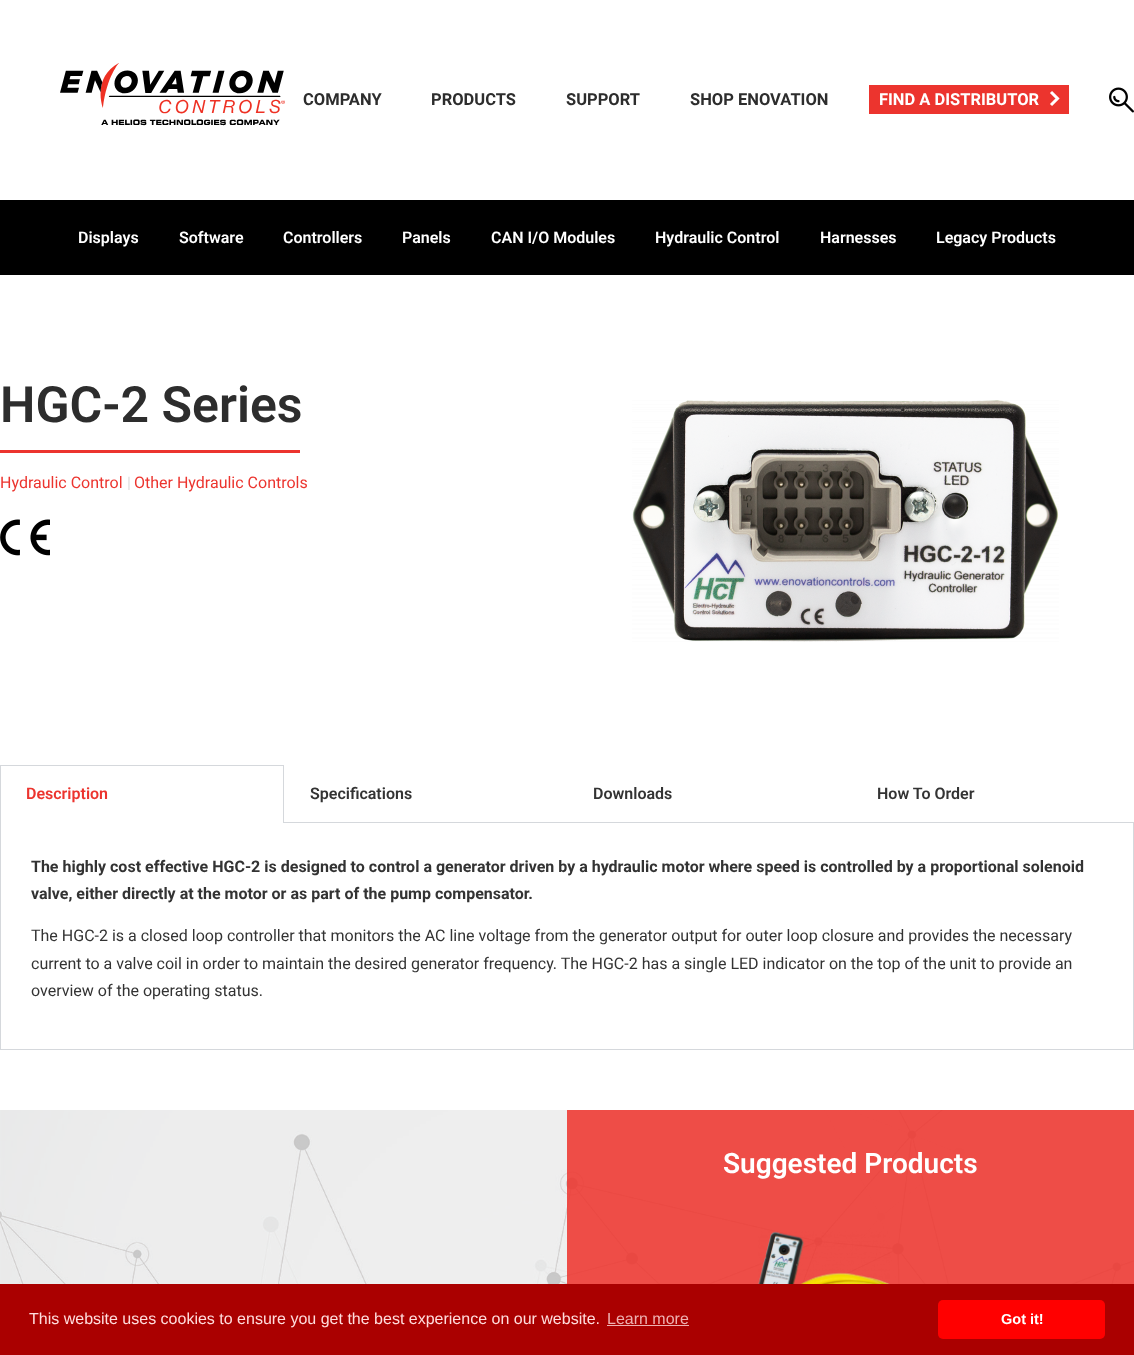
<!DOCTYPE html>
<meta charset="utf-8">
<style>body { margin: 0 } canvas { display: block }</style>
<canvas id="canvas" width="1134" height="1355"></canvas>
<img id="img1" src="images/1.png" hidden>
<img id="img2" src="images/2.png" hidden>
<img id="img3" src="images/3.png" hidden>
<img id="img4" src="images/4.png" hidden>
<img id="img5" src="images/5.png" hidden>
<img id="img6" src="images/6.png" hidden>
<script>
window.onload = function () {
    const canvas = document.getElementById('canvas');
    const context = canvas.getContext('2d');
    context.miterLimit = 4;
    context.fontKerning = 'normal';

    context.fillStyle = 'rgb(255, 255, 255)';
    context.fillRect(0, 0, 1134, 1355);
    context.drawImage(document.getElementById('img1'), 60, 63, 225, 63);
    context.fillStyle = 'rgb(236, 52, 46)';
    context.fillRect(869, 85, 200, 29);
    context.beginPath();
    context.moveTo(1051, 92);
    context.lineTo(1057.5, 98.5);
    context.lineTo(1051, 105);
    context.strokeStyle = 'rgb(255, 255, 255)';
    context.lineWidth = 3;
    context.stroke();
    context.drawImage(document.getElementById('img2'), 1109, 87, 25, 26);
    context.fillStyle = 'rgb(0, 0, 0)';
    context.fillRect(0, 200, 1134, 75);
    context.fillStyle = 'rgb(236, 52, 46)';
    context.fillRect(0, 450, 300, 3);
    context.drawImage(document.getElementById('img3'), 0, 519, 50, 37);
    context.drawImage(document.getElementById('img4'), 632, 400, 427, 242);
    context.fillStyle = 'rgb(213, 216, 220)';
    context.fillRect(0, 765, 284, 1);
    context.fillRect(283, 765, 1, 58);
    context.fillRect(0, 765, 1, 58);
    context.fillRect(283, 822, 851, 1);
    context.fillRect(1133, 823, 1, 227);
    context.fillRect(0, 1049, 1134, 1);
    context.fillRect(0, 823, 1, 227);
    context.drawImage(document.getElementById('img5'), 0, 1110, 1134, 174);
    context.fillStyle = 'rgba(0, 0, 0, 0.06)';
    context.fillRect(0, 1110, 567, 174);
    context.fillStyle = 'rgba(236, 52, 46, 0.88)';
    context.fillRect(567, 1110, 567, 174);
    context.drawImage(document.getElementById('img6'), 758, 1231, 132, 53);
    context.fillStyle = 'rgb(170, 0, 0)';
    context.fillRect(0, 1284, 1134, 71);
    context.fillStyle = 'rgb(238, 177, 177)';
    context.fillRect(607, 1325, 82, 1);
    context.fillStyle = 'rgb(255, 0, 0)';
    context.beginPath();
    context.roundRect(938, 1300, 167, 39, 5);
    context.fill();
    context.font = 'bold 16.5px Roboto';
    context.fillStyle = 'rgb(45, 45, 45)';
    context.fillText('COMPANY', 303, 105);
    context.fillText('PRODUCTS', 431, 105);
    context.fillText('SUPPORT', 566, 105);
    context.fillText('SHOP ENOVATION', 690, 105);
    context.fillStyle = 'rgb(255, 255, 255)';
    context.fillText('FIND A DISTRIBUTOR', 879, 105);
    context.font = '600 16px Roboto';
    context.fillText('Displays', 78, 243);
    context.fillText('Software', 179, 243);
    context.fillText('Controllers', 283, 243);
    context.fillText('Panels', 402, 243);
    context.fillText('CAN I/O Modules', 491, 243);
    context.fillText('Hydraulic Control', 655, 243);
    context.fillText('Harnesses', 820, 243);
    context.fillText('Legacy Products', 936, 243);
    context.font = '600 50px Roboto';
    context.fillStyle = 'rgb(45, 45, 45)';
    context.fillText('HGC-2 Series', 0, 422);
    context.font = '16px Roboto';
    context.fillStyle = 'rgb(236, 52, 46)';
    context.fillText('Hydraulic Control', 0, 488);
    context.fillStyle = 'rgb(221, 221, 221)';
    context.fillText('|', 127, 488);
    context.fillStyle = 'rgb(236, 52, 46)';
    context.fillText('Other Hydraulic Controls', 134, 488);
    context.font = '600 16px Roboto';
    context.fillText('Description', 26, 799);
    context.fillStyle = 'rgb(51, 51, 51)';
    context.fillText('Specifications', 310, 799);
    context.fillText('Downloads', 593, 799);
    context.fillText('How To Order', 877, 799);
    context.font = 'bold 16px Roboto';
    context.fillText('The highly cost effective HGC-2 is designed to control a generator driven by a hydraulic motor where speed is controlled by a proportional solenoid', 31, 872);
    context.fillText('valve, either directly at the motor or as part of the pump compensator.', 31, 899);
    context.font = '16px Roboto';
    context.fillText('The HGC-2 is a closed loop controller that monitors the AC line voltage from the generator output for outer loop closure and provides the necessary', 31, 941);
    context.fillText('current to a valve coil in order to maintain the desired generator frequency. The HGC-2 has a single LED indicator on the top of the unit to provide an', 31, 969);
    context.fillText('overview of the operating status.', 31, 996);
    context.font = '600 28px Roboto';
    context.fillStyle = 'rgb(255, 255, 255)';
    context.fillText('Suggested Products', 723, 1173);
    context.font = '16px Liberation Sans';
    context.fillStyle = 'rgb(255, 221, 221)';
    context.fillText('This website uses cookies to ensure you get the best experience on our website.', 29, 1324);
    context.fillStyle = 'rgb(238, 177, 177)';
    context.fillText('Learn more', 607, 1324);
    context.font = 'bold 14.5px Liberation Sans';
    context.fillStyle = 'rgb(255, 255, 255)';
    context.fillText('Got it!', 1001, 1324);
};
</script>
